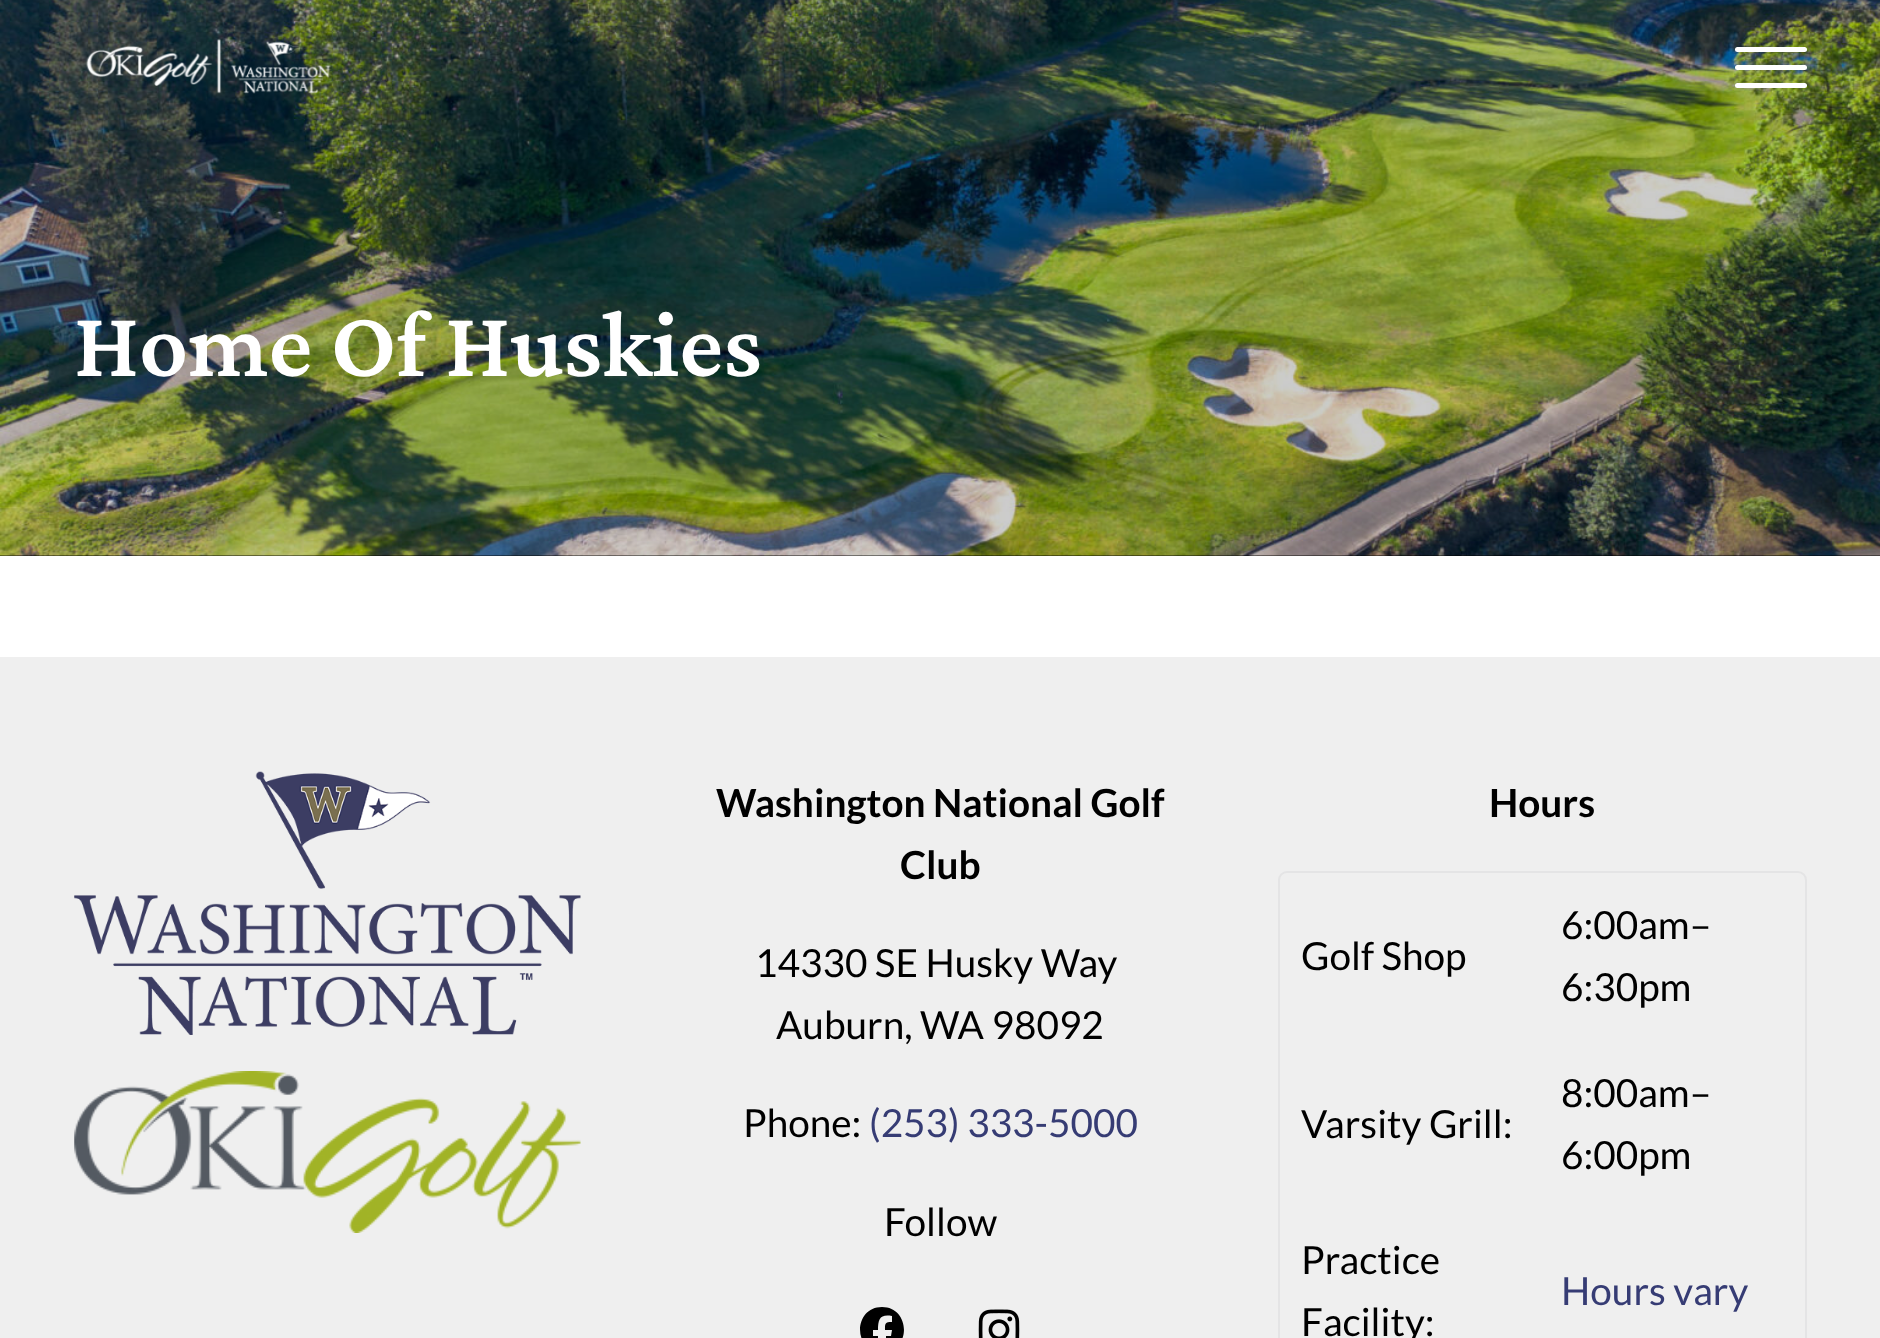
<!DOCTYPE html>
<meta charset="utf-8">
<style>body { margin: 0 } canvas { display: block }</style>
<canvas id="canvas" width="1880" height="1338"></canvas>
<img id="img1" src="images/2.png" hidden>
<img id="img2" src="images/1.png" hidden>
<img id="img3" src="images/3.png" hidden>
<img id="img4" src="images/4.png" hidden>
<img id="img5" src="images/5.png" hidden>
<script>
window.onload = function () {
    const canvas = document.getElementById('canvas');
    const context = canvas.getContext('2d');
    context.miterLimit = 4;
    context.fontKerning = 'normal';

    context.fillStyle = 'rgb(255, 255, 255)';
    context.fillRect(0, 0, 1880, 1338);
    context.fillStyle = 'rgb(0, 0, 0)';
    context.fillRect(0, 555, 1880, 1);
    context.drawImage(document.getElementById('img1'), 0, 0, 1880, 556);
    context.drawImage(document.getElementById('img2'), 86, 38, 245, 56);
    context.fillStyle = 'rgb(255, 255, 255)';
    context.beginPath();
    context.roundRect(1735, 65, 72, 5, 2.5);
    context.fill();
    context.beginPath();
    context.roundRect(1735, 47, 72, 5, 2.5);
    context.fill();
    context.beginPath();
    context.roundRect(1735, 83, 72, 5, 2.5);
    context.fill();
    context.fillStyle = 'rgb(239, 239, 239)';
    context.fillRect(0, 657, 1880, 681);
    context.drawImage(document.getElementById('img3'), 74, 771, 507, 264);
    context.drawImage(document.getElementById('img4'), 74, 1071, 507, 162);
    context.fillStyle = 'rgb(0, 0, 0)';
    context.beginPath();
    context.moveTo(882, 1307);
    context.bezierCurveTo(855, 1307, 852, 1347, 878, 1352);
    context.lineTo(878, 1336);
    context.lineTo(873, 1336);
    context.lineTo(873, 1330);
    context.lineTo(878, 1330);
    context.bezierCurveTo(878, 1319, 880, 1314, 892, 1316);
    context.lineTo(892, 1322);
    context.bezierCurveTo(885, 1322, 885, 1323, 885, 1330);
    context.lineTo(892, 1330);
    context.lineTo(891, 1336);
    context.lineTo(886, 1336);
    context.lineTo(886, 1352);
    context.bezierCurveTo(912, 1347, 909, 1307, 882, 1307);
    context.closePath();
    context.fill();
    context.drawImage(document.getElementById('img5'), 978, 1309, 42, 29);
    context.beginPath();
    context.roundRect(1279, 872, 527, 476, 8);
    context.strokeStyle = 'rgb(228, 228, 229)';
    context.lineWidth = 2;
    context.stroke();
    context.font = '600 96.5px Crimson Pro';
    context.fillStyle = 'rgb(255, 255, 255)';
    context.fillText('Home Of Huskies', 74, 376);
    context.font = 'bold 38.75px Lato';
    context.fillStyle = 'rgb(0, 0, 0)';
    context.fillText('Washington National Golf', 716, 817);
    context.fillText('Club', 900, 879);
    context.font = '38.75px Lato';
    context.fillText('14330 SE Husky Way', 755, 977);
    context.fillText('Auburn, WA 98092', 776, 1039);
    context.fillText('Phone:', 743, 1137);
    context.fillStyle = 'rgb(54, 60, 116)';
    context.fillText('(253) 333-5000', 869, 1137);
    context.fillStyle = 'rgb(0, 0, 0)';
    context.fillText('Follow', 884, 1236);
    context.font = 'bold 38.75px Lato';
    context.fillText('Hours', 1489, 817);
    context.font = '38.75px Lato';
    context.fillText('Golf Shop', 1301, 970);
    context.fillText('6:00am–', 1561, 939);
    context.fillText('6:30pm', 1561, 1001);
    context.fillText('Varsity Grill:', 1301, 1138);
    context.fillText('8:00am–', 1561, 1107);
    context.fillText('6:00pm', 1561, 1169);
    context.fillText('Practice', 1301, 1274);
    context.fillText('Facility:', 1301, 1336);
    context.fillStyle = 'rgb(54, 60, 116)';
    context.fillText('Hours vary', 1561, 1305);
};
</script>
